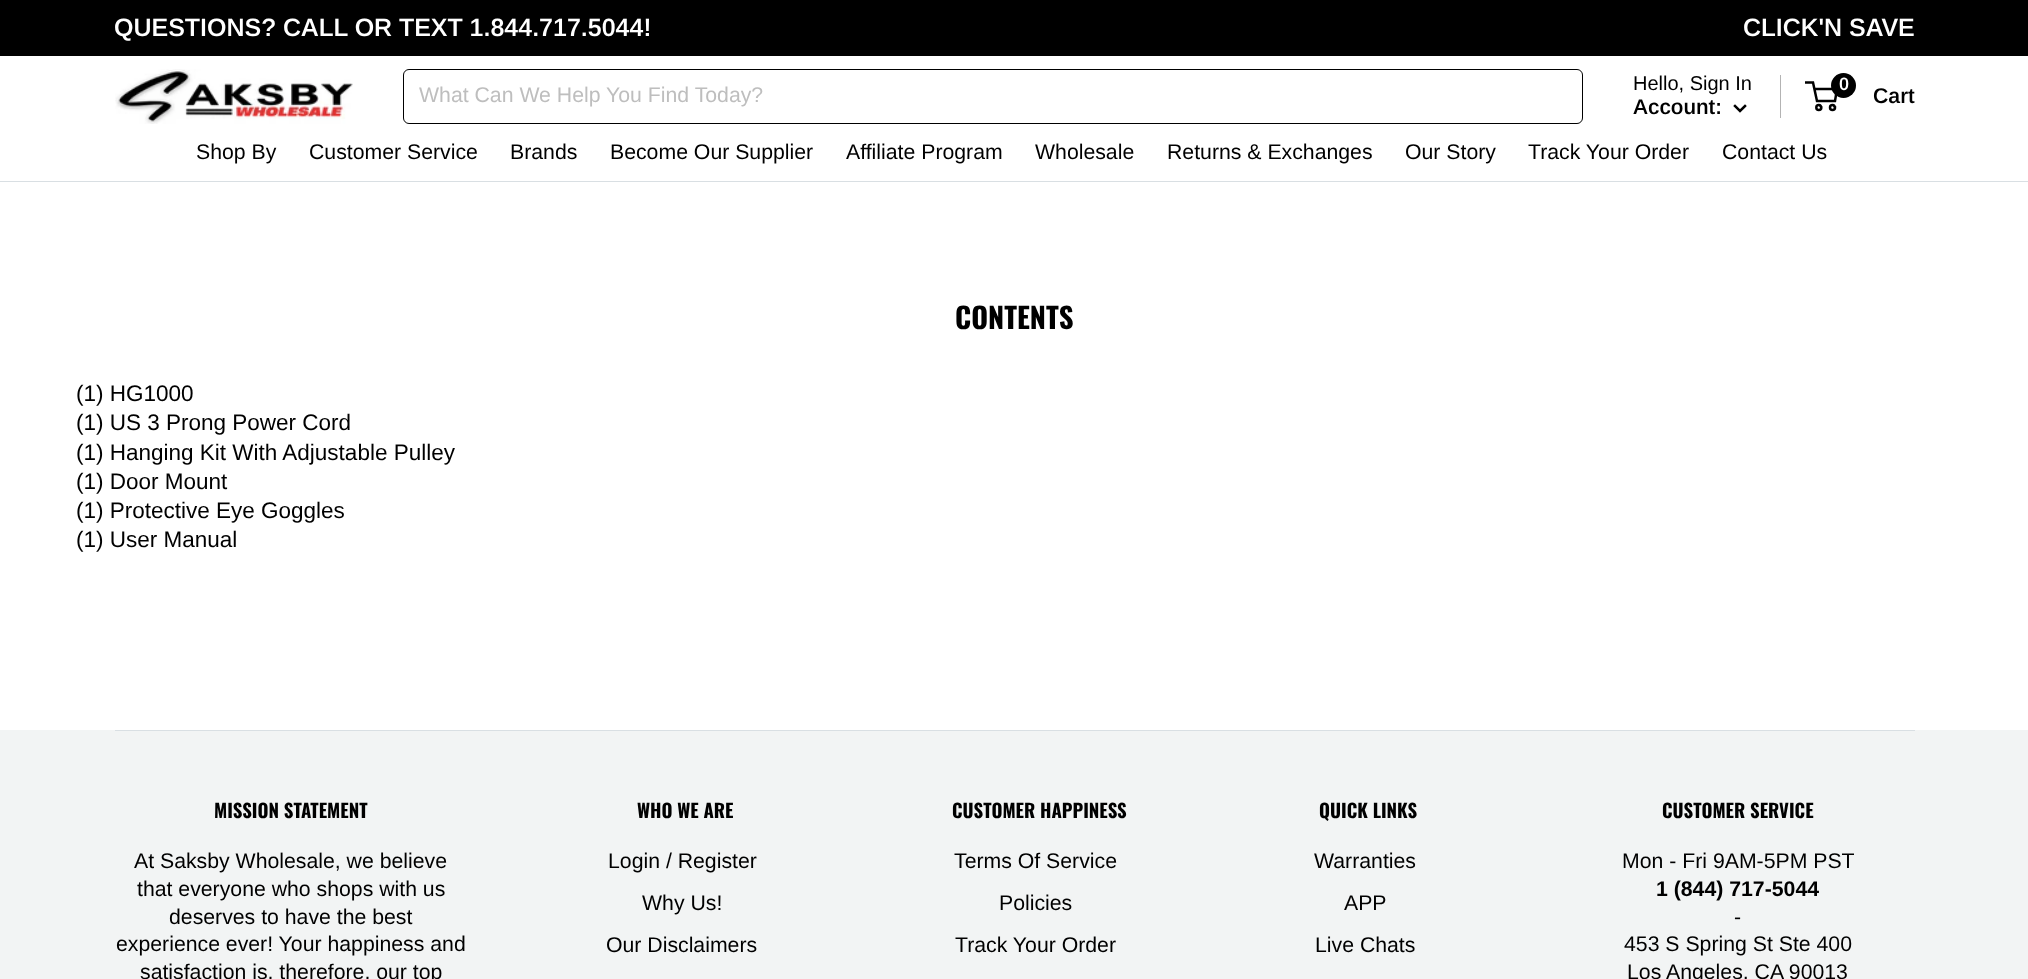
<!DOCTYPE html>
<meta charset="utf-8">
<style>body { margin: 0 } canvas { display: block }</style>
<canvas id="canvas" width="2028" height="979"></canvas>
<img id="img1" src="images/1.png" hidden>
<script>
window.onload = function () {
    const canvas = document.getElementById('canvas');
    const context = canvas.getContext('2d');
    context.miterLimit = 4;
    context.fontKerning = 'normal';

    context.fillStyle = 'rgb(255, 255, 255)';
    context.fillRect(0, 0, 2028, 979);
    context.fillStyle = 'rgb(0, 0, 0)';
    context.fillRect(0, 0, 2028, 56);
    context.drawImage(document.getElementById('img1'), 115, 69, 238, 55);
    context.beginPath();
    context.roundRect(403.5, 69.5, 1179, 54, 5.5);
    context.strokeStyle = 'rgb(0, 0, 0)';
    context.stroke();
    context.fillStyle = 'rgb(179, 179, 179)';
    context.fillRect(1780, 75, 1, 43);
    context.beginPath();
    context.moveTo(1745, 106);
    context.lineTo(1740, 111);
    context.lineTo(1735, 106);
    context.lineWidth = 2.5;
    context.lineCap = 'square';
    context.stroke();
    context.beginPath();
    context.arc(1818.8, 107.5, 2.5, 0, 2 * Math.PI);
    context.stroke();
    context.beginPath();
    context.arc(1832.5, 107.5, 2.5, 0, 2 * Math.PI);
    context.stroke();
    context.beginPath();
    context.moveTo(1814, 89);
    context.lineTo(1837, 89);
    context.lineTo(1835, 101);
    context.lineTo(1817, 101);
    context.lineTo(1813, 82.5);
    context.lineTo(1805, 82.5);
    context.lineCap = 'butt';
    context.stroke();
    context.fillStyle = 'rgb(0, 0, 0)';
    context.beginPath();
    context.arc(1843.5, 85.5, 12.5, 0, 2 * Math.PI);
    context.fill();
    context.fillStyle = 'rgb(217, 223, 227)';
    context.fillRect(0, 181, 2028, 1);
    context.fillStyle = 'rgb(242, 244, 244)';
    context.fillRect(0, 730, 2028, 249);
    context.fillStyle = 'rgb(217, 223, 227)';
    context.fillRect(115, 730, 1800, 1);
    context.font = '600 25px Arimo';
    context.fillStyle = 'rgb(255, 255, 255)';
    context.fillText('QUESTIONS? CALL OR TEXT 1.844.717.5044!', 114, 36);
    context.fillText('CLICK\'N SAVE', 1743, 36);
    context.font = '21.25px Arimo';
    context.fillStyle = 'rgb(190, 190, 190)';
    context.fillText('What Can We Help You Find Today?', 419, 102);
    context.font = '20px Arimo';
    context.fillStyle = 'rgb(0, 0, 0)';
    context.fillText('Hello, Sign In', 1633, 90);
    context.font = '600 21.25px Arimo';
    context.fillText('Account:', 1633, 114);
    context.font = '600 18px Arimo';
    context.fillStyle = 'rgb(255, 255, 255)';
    context.fillText('0', 1839, 90);
    context.font = '600 21.25px Arimo';
    context.fillStyle = 'rgb(0, 0, 0)';
    context.fillText('Cart', 1873, 103);
    context.font = '21.25px Arimo';
    context.fillText('Shop By', 196, 159);
    context.fillText('Customer Service', 309, 159);
    context.fillText('Brands', 510, 159);
    context.fillText('Become Our Supplier', 610, 159);
    context.fillText('Affiliate Program', 846, 159);
    context.fillText('Wholesale', 1035, 159);
    context.fillText('Returns & Exchanges', 1167, 159);
    context.fillText('Our Story', 1405, 159);
    context.fillText('Track Your Order', 1528, 159);
    context.fillText('Contact Us', 1722, 159);
    context.font = 'bold 28.75px Oswald';
    context.fillText('CONTENTS', 955, 329);
    context.font = '22.5px Arimo';
    context.fillText('(1) HG1000', 76, 401);
    context.fillText('(1) US 3 Prong Power Cord', 76, 430);
    context.fillText('(1) Hanging Kit With Adjustable Pulley', 76, 460);
    context.fillText('(1) Door Mount', 76, 489);
    context.fillText('(1) Protective Eye Goggles', 76, 518);
    context.fillText('(1) User Manual', 76, 547);
    context.font = 'bold 18.75px Oswald';
    context.fillText('MISSION STATEMENT', 214, 818);
    context.font = '21.25px Arimo';
    context.fillText('At Saksby Wholesale, we believe', 134, 868);
    context.fillText('that everyone who shops with us', 137, 896);
    context.fillText('deserves to have the best', 169, 924);
    context.fillText('experience ever! Your happiness and', 116, 951);
    context.fillText('satisfaction is, therefore, our top', 140, 979);
    context.font = 'bold 18.75px Oswald';
    context.fillText('WHO WE ARE', 637, 818);
    context.font = '21.25px Arimo';
    context.fillText('Login / Register', 608, 868);
    context.fillText('Why Us!', 642, 910);
    context.fillText('Our Disclaimers', 606, 952);
    context.font = 'bold 18.75px Oswald';
    context.fillText('CUSTOMER HAPPINESS', 952, 818);
    context.font = '21.25px Arimo';
    context.fillText('Terms Of Service', 954, 868);
    context.fillText('Policies', 999, 910);
    context.fillText('Track Your Order', 955, 952);
    context.font = 'bold 18.75px Oswald';
    context.fillText('QUICK LINKS', 1319, 818);
    context.font = '21.25px Arimo';
    context.fillText('Warranties', 1314, 868);
    context.fillText('APP', 1344, 910);
    context.fillText('Live Chats', 1315, 952);
    context.font = 'bold 18.75px Oswald';
    context.fillText('CUSTOMER SERVICE', 1662, 818);
    context.font = '21.25px Arimo';
    context.fillText('Mon - Fri 9AM-5PM PST', 1622, 868);
    context.font = 'bold 21.25px Arimo';
    context.fillText('1 (844) 717-5044', 1656, 896);
    context.font = '21.25px Arimo';
    context.fillText('-', 1734, 924);
    context.fillText('453 S Spring St Ste 400', 1624, 951);
    context.fillText('Los Angeles, CA 90013', 1627, 979);
};
</script>
